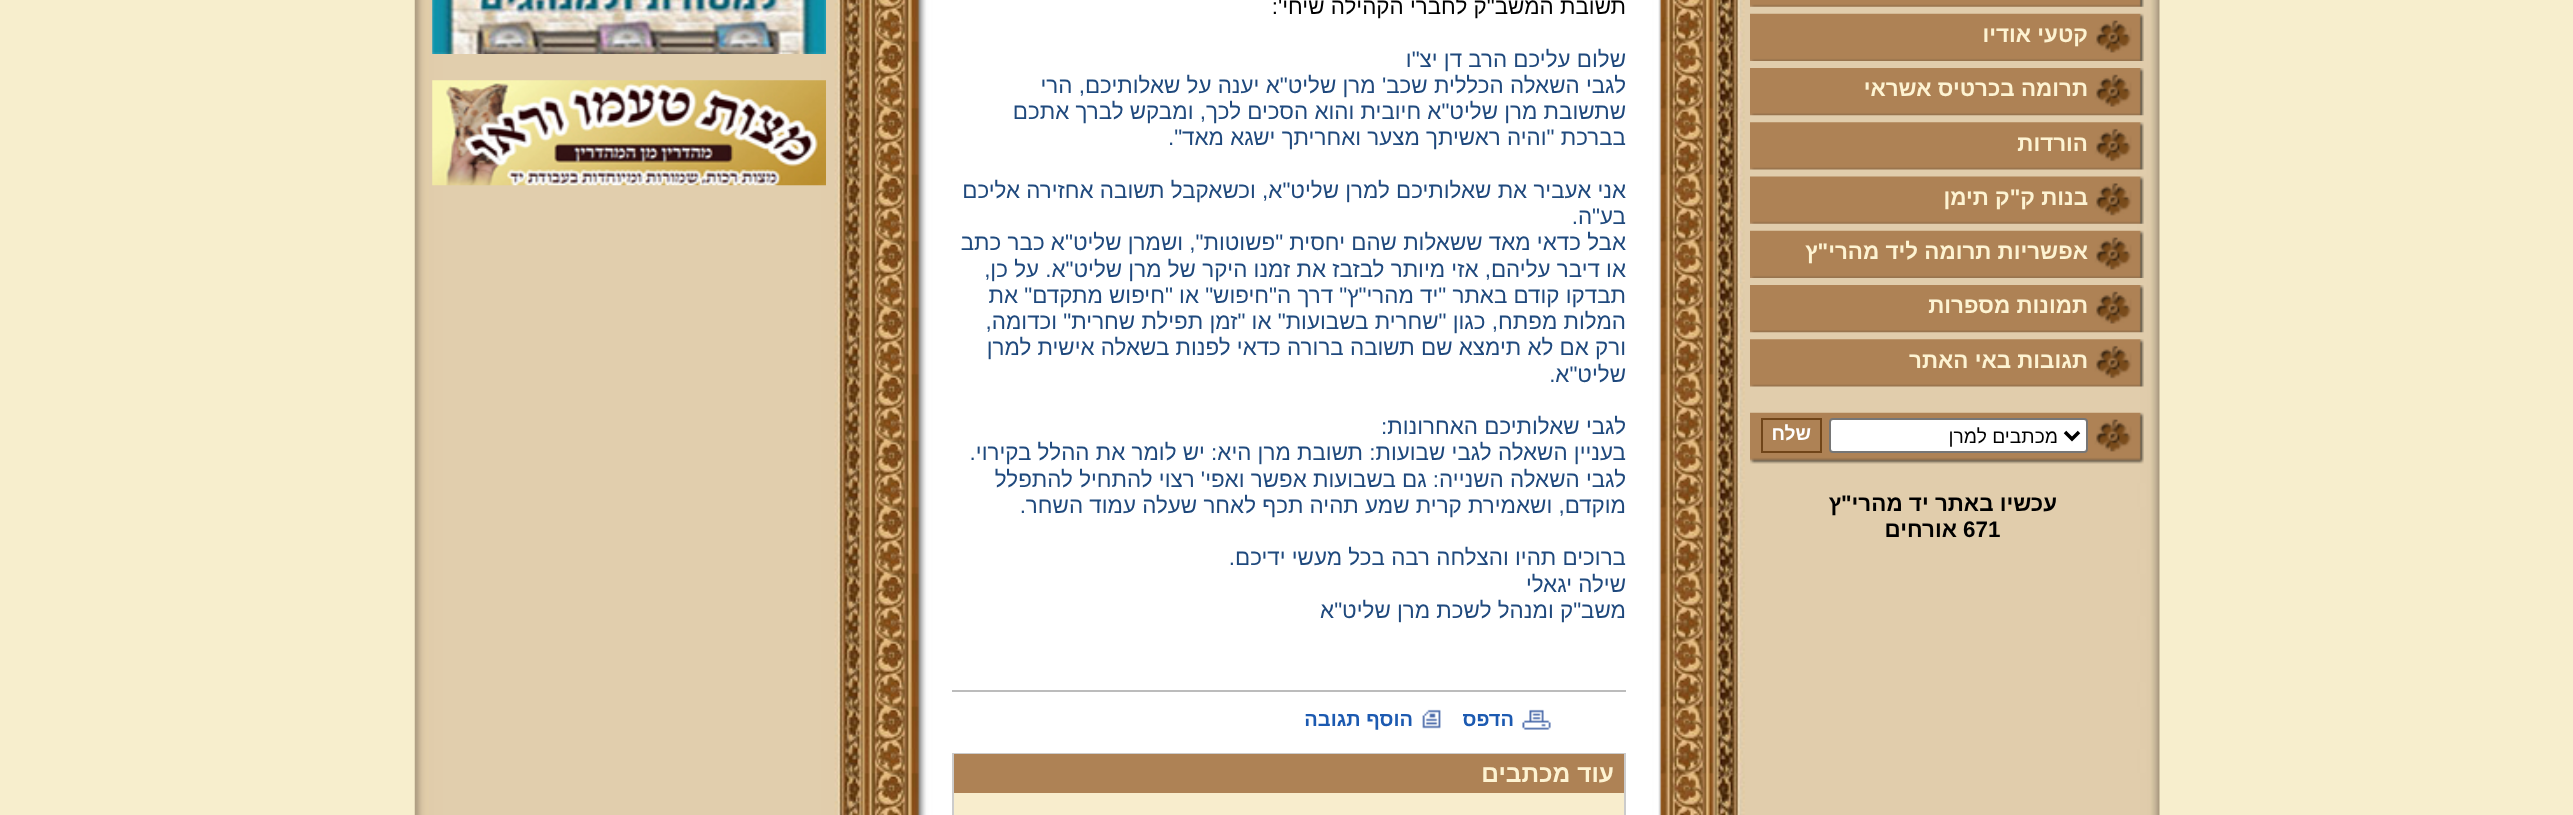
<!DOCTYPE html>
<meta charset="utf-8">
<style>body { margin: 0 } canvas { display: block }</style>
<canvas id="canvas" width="2573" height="815"></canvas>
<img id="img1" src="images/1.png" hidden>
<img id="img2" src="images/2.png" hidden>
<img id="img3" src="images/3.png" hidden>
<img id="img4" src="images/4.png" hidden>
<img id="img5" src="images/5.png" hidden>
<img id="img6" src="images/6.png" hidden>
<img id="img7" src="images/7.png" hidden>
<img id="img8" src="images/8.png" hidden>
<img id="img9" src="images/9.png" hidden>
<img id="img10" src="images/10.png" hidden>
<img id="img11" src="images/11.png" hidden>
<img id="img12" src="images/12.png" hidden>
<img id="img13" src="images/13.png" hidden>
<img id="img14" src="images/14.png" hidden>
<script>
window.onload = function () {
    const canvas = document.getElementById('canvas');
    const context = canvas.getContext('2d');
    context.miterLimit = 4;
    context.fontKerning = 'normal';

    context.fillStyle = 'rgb(247, 238, 205)';
    context.fillRect(0, 0, 2573, 815);
    context.drawImage(document.getElementById('img1'), 414, 0, 1746, 815);
    context.drawImage(document.getElementById('img2'), 1750, 0, 394, 7);
    context.drawImage(document.getElementById('img3'), 1750, 13, 394, 48);
    context.drawImage(document.getElementById('img4'), 1750, 68, 394, 48);
    context.drawImage(document.getElementById('img5'), 1750, 122, 394, 48);
    context.drawImage(document.getElementById('img6'), 1750, 176, 394, 48);
    context.drawImage(document.getElementById('img7'), 1750, 230, 394, 48);
    context.drawImage(document.getElementById('img8'), 1750, 285, 394, 48);
    context.drawImage(document.getElementById('img9'), 1750, 339, 394, 48);
    context.drawImage(document.getElementById('img10'), 1750, 412, 394, 52);
    context.fillStyle = 'rgb(255, 255, 255)';
    context.beginPath();
    context.roundRect(1830, 419, 257, 33, 3);
    context.fill();
    context.strokeStyle = 'rgb(118, 118, 118)';
    context.lineWidth = 2;
    context.stroke();
    context.beginPath();
    context.moveTo(2065, 432);
    context.lineTo(2072, 439);
    context.lineTo(2079, 432);
    context.strokeStyle = 'rgb(0, 0, 0)';
    context.lineWidth = 3.5;
    context.stroke();
    context.strokeStyle = 'rgb(112, 69, 25)';
    context.lineWidth = 2;
    context.strokeRect(1762, 419, 59, 33);
    context.fillStyle = 'rgb(188, 188, 188)';
    context.fillRect(952, 690, 674, 2);
    context.drawImage(document.getElementById('img11'), 1522, 709, 29, 21);
    context.drawImage(document.getElementById('img12'), 1422, 709, 19, 20);
    context.strokeStyle = 'rgb(204, 204, 204)';
    context.strokeRect(953, 754, 672, 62);
    context.fillStyle = 'rgb(174, 130, 85)';
    context.fillRect(954, 754, 670, 39);
    context.fillStyle = 'rgb(248, 237, 205)';
    context.fillRect(954, 793, 670, 22);
    context.drawImage(document.getElementById('img13'), 432, 0, 394, 54);
    context.drawImage(document.getElementById('img14'), 432, 80, 394, 106);
    context.direction = 'rtl';
    context.font = 'bold 22.4px Liberation Sans';
    context.fillStyle = 'rgb(253, 243, 210)';
    context.fillText('קטעי אודיו', 2088, 42);
    context.fillText('תרומה בכרטיס אשראי', 2088, 96);
    context.fillText('הורדות', 2088, 151);
    context.fillText('בנות ק"ק תימן', 2088, 205);
    context.fillText('אפשריות תרומה ליד מהרי"ץ', 2088, 259);
    context.fillText('תמונות מספרות', 2088, 313);
    context.fillText('תגובות באי האתר', 2088, 368);
    context.font = '19.25px Liberation Sans';
    context.fillStyle = 'rgb(0, 0, 0)';
    context.fillText('מכתבים למרן', 2058, 443);
    context.font = 'bold 19.25px Liberation Sans';
    context.fillStyle = 'rgb(255, 255, 255)';
    context.fillText('שלח', 1811, 440);
    context.font = 'bold 22.4px Liberation Sans';
    context.fillStyle = 'rgb(0, 0, 0)';
    context.fillText('עכשיו באתר יד מהרי"ץ', 2057, 511);
    context.direction = 'ltr';
    context.fillText('671', 1963, 537);
    context.direction = 'rtl';
    context.fillText('אורחים', 1957, 537);
    context.font = '22.4px Liberation Sans';
    context.fillText('תשובת המשב"ק לחברי הקהילה שיחי\':', 1626, 14);
    context.fillStyle = 'rgb(31, 73, 125)';
    context.fillText('שלום עליכם הרב דן יצ"ו', 1626, 67);
    context.fillText('לגבי השאלה הכללית שכב\' מרן שליט"א יענה על שאלותיכם, הרי', 1626, 93);
    context.fillText('שתשובת מרן שליט"א חיובית והוא הסכים לכך, ומבקש לברך אתכם', 1626, 119);
    context.fillText('בברכת "והיה ראשיתך מצער ואחריתך ישגא מאד".', 1626, 145);
    context.fillText('אני אעביר את שאלותיכם למרן שליט"א, וכשאקבל תשובה אחזירה אליכם', 1626, 198);
    context.fillText('בע"ה.', 1626, 224);
    context.fillText('אבל כדאי מאד ששאלות שהם יחסית "פשוטות", ושמרן שליט"א כבר כתב', 1626, 250);
    context.fillText('או דיבר עליהם, אזי מיותר לבזבז את זמנו היקר של מרן שליט"א. על כן,', 1626, 277);
    context.fillText('תבדקו קודם באתר "יד מהרי"ץ" דרך ה"חיפוש" או "חיפוש מתקדם" את', 1626, 303);
    context.fillText('המלות מפתח, כגון "שחרית בשבועות" או "זמן תפילת שחרית" וכדומה,', 1626, 329);
    context.fillText('ורק אם לא תימצא שם תשובה ברורה כדאי לפנות בשאלה אישית למרן', 1626, 355);
    context.fillText('שליט"א.', 1626, 382);
    context.fillText('לגבי שאלותיכם האחרונות:', 1626, 434);
    context.fillText('בעניין השאלה לגבי שבועות: תשובת מרן היא: יש לומר את ההלל בקירוי.', 1626, 460);
    context.fillText('לגבי השאלה השנייה: גם בשבועות אפשר ואפי\' רצוי להתחיל להתפלל', 1626, 487);
    context.fillText('מוקדם, ושאמירת קרית שמע תהיה תכף לאחר שעלה עמוד השחר.', 1626, 513);
    context.fillText('ברוכים תהיו והצלחה רבה בכל מעשי ידיכם.', 1626, 565);
    context.fillText('שילה יגאלי', 1626, 592);
    context.fillText('משב"ק ומנהל לשכת מרן שליט"א', 1626, 618);
    context.font = 'bold 20px Liberation Sans';
    context.fillStyle = 'rgb(28, 90, 177)';
    context.fillText('הדפס', 1514, 726);
    context.fillText('הוסף תגובה', 1413, 726);
    context.font = 'bold 24.5px Liberation Sans';
    context.fillStyle = 'rgb(253, 243, 210)';
    context.fillText('עוד מכתבים', 1614, 782);
};
</script>
